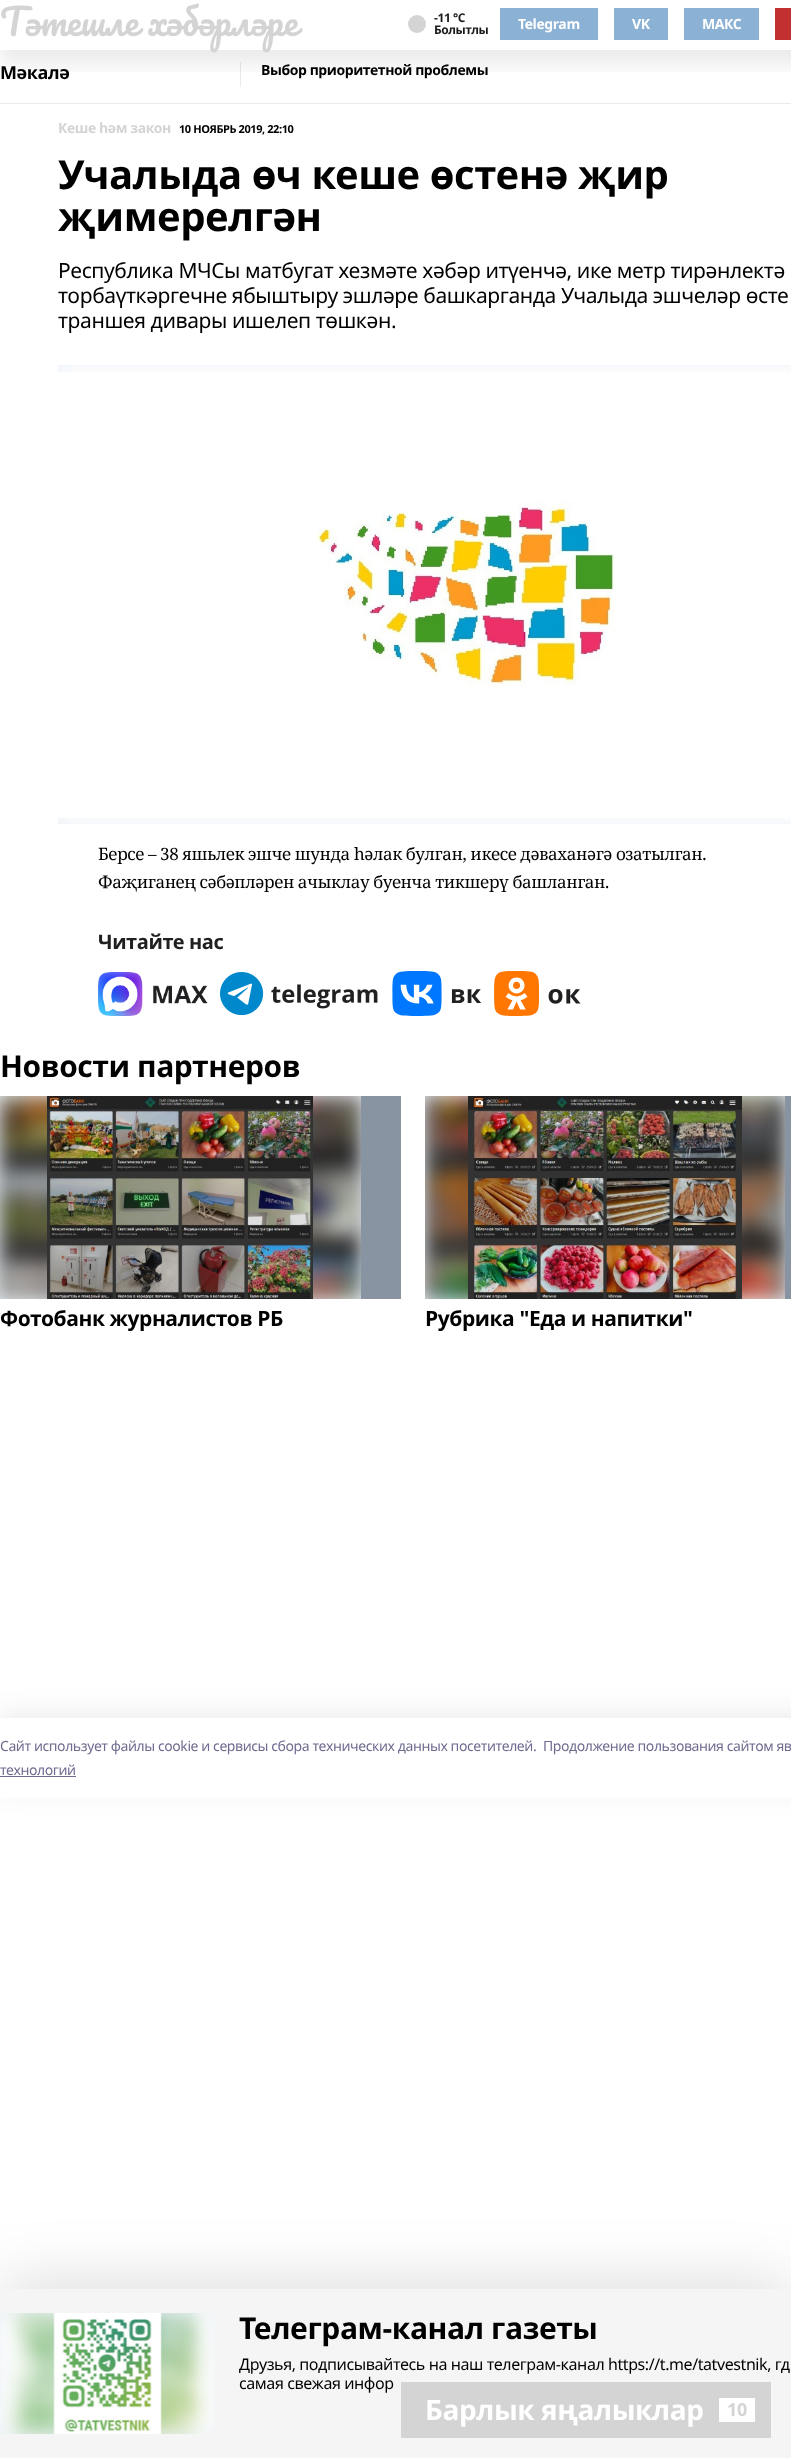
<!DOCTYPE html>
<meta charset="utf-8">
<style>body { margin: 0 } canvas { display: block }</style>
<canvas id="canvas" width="791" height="2458"></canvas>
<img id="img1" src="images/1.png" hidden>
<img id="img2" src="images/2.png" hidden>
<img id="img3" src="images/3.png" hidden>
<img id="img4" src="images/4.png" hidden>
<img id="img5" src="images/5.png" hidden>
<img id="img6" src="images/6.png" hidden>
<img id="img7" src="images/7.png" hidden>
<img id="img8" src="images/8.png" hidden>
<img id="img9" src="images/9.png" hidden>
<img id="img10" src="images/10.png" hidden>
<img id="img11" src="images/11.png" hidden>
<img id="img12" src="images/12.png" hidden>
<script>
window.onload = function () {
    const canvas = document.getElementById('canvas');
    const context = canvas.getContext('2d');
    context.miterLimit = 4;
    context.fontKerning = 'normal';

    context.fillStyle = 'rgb(255, 255, 255)';
    context.fillRect(0, 0, 791, 2458);
    context.fillStyle = 'rgb(234, 234, 234)';
    context.fillRect(240, 62, 1, 25);
    context.save();
    context.beginPath();
    context.rect(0, 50, 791, 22);
    context.clip();
    context.fillStyle = 'rgba(0, 0, 0, 0.08)';
    context.filter = 'blur(10px)';
    context.beginPath();
    context.rect(0, 15, 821, 50);
    context.fill();
    context.filter = 'none';
    context.restore();
    context.fillStyle = 'rgb(212, 212, 212)';
    context.beginPath();
    context.arc(417, 24, 9, 0, 2 * Math.PI);
    context.fill();
    context.fillStyle = 'rgb(139, 177, 212)';
    context.fillRect(500, 8, 98, 32);
    context.fillRect(614, 8, 54, 32);
    context.fillRect(684, 8, 75, 32);
    context.fillStyle = 'rgb(194, 48, 48)';
    context.fillRect(775, 8, 16, 32);
    context.fillStyle = 'rgb(234, 234, 234)';
    context.fillRect(0, 103, 791, 1);
    context.fillStyle = 'rgb(237, 242, 247)';
    context.fillRect(58, 365, 733, 459);
    context.drawImage(document.getElementById('img1'), 58, 365, 733, 459);
    context.drawImage(document.getElementById('img2'), 58, 372, 733, 446);
    context.drawImage(document.getElementById('img3'), 98, 972, 110, 44);
    context.drawImage(document.getElementById('img4'), 220, 972, 158, 43);
    context.drawImage(document.getElementById('img5'), 392, 971, 89, 45);
    context.drawImage(document.getElementById('img6'), 494, 971, 87, 45);
    context.fillStyle = 'rgb(136, 148, 162)';
    context.fillRect(361, 1096, 40, 203);
    context.fillStyle = 'rgb(237, 242, 247)';
    context.fillRect(0, 1096, 361, 203);
    context.drawImage(document.getElementById('img7'), 0, 1096, 361, 203);
    context.drawImage(document.getElementById('img8'), 47, 1096, 266, 203);
    context.fillStyle = 'rgb(136, 148, 162)';
    context.fillRect(785, 1096, 6, 203);
    context.fillStyle = 'rgb(237, 242, 247)';
    context.fillRect(425, 1096, 360, 203);
    context.drawImage(document.getElementById('img9'), 425, 1096, 360, 203);
    context.drawImage(document.getElementById('img10'), 468, 1096, 274, 203);
    context.fillStyle = 'rgba(0, 0, 0, 0.12)';
    context.filter = 'blur(30px)';
    context.beginPath();
    context.rect(0, 2279, 791, 169);
    context.fill();
    context.filter = 'none';
    context.fillStyle = 'rgb(245, 245, 245)';
    context.fillRect(0, 2289, 791, 169);
    context.fillStyle = 'rgb(212, 212, 212)';
    context.fillRect(401, 2382, 370, 56);
    context.fillStyle = 'rgb(255, 255, 255)';
    context.fillRect(719, 2398, 36, 24);
    context.save();
    context.beginPath();
    context.moveTo(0, 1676);
    context.lineTo(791, 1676);
    context.lineTo(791, 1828);
    context.lineTo(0, 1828);
    context.closePath();
    context.moveTo(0, 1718);
    context.lineTo(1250, 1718);
    context.lineTo(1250, 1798);
    context.lineTo(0, 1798);
    context.closePath();
    context.clip('evenodd');
    context.fillStyle = 'rgba(20, 20, 43, 0.08)';
    context.filter = 'blur(11.5px)';
    context.beginPath();
    context.rect(0, 1712, 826, 80);
    context.fill();
    context.filter = 'none';
    context.restore();
    context.fillStyle = 'rgb(111, 108, 144)';
    context.fillRect(0, 1776, 76, 1);
    context.fillStyle = 'rgb(237, 242, 247)';
    context.fillRect(0, 2313, 215, 121);
    context.drawImage(document.getElementById('img11'), 0, 2313, 215, 121);
    context.drawImage(document.getElementById('img12'), 53, 2313, 109, 121);
    context.letterSpacing = '-0.42px';
    context.font = '36px Pacifico';
    context.fillStyle = 'rgb(212, 212, 212)';
    context.fillText('Тәтешле хәбәрләре', 0, 36);
    context.font = 'bold 12px Noto Sans';
    context.fillStyle = 'rgb(26, 26, 26)';
    context.fillText('-11 °С', 434, 22);
    context.fillText('Болытлы', 434, 34);
    context.font = 'bold 14px Noto Sans';
    context.fillStyle = 'rgb(255, 255, 255)';
    context.fillText('Telegram', 518, 29);
    context.fillText('VK', 632, 29);
    context.fillText('МАКС', 702, 29);
    context.font = 'bold 18px Noto Sans';
    context.fillStyle = 'rgb(0, 0, 0)';
    context.fillText('Мәкалә', 0, 79);
    context.font = 'bold 14px Noto Sans';
    context.fillText('Выбор приоритетной проблемы', 261, 75);
    context.fillStyle = 'rgb(212, 212, 212)';
    context.fillText('Кеше һәм закон', 58, 133);
    context.font = 'bold 11px Noto Sans';
    context.fillStyle = 'rgb(0, 0, 0)';
    context.fillText('10 НОЯБРЬ 2019, 22:10', 179, 133);
    context.font = 'bold 40px Noto Sans';
    context.fillText('Учалыда өч кеше өстенә җир', 58, 189);
    context.fillText('җимерелгән', 58, 231);
    context.font = '21px Noto Sans';
    context.fillText('Республика МЧСы матбугат хезмәте хәбәр итүенчә, ике метр тирәнлектә', 58, 278);
    context.fillText('торбаүткәргечне ябыштыру эшләре башкарганда Учалыда эшчеләр өсте', 58, 303);
    context.fillText('траншея дивары ишелеп төшкән.', 58, 328);
    context.font = '17px Noto Serif';
    context.fillText('Берсе – 38 яшьлек эшче шунда һәлак булган, икесе дәваханәгә озатылган.', 98, 860);
    context.fillText('Фаҗиганең сәбәпләрен ачыклау буенча тикшерү башланган.', 98, 888);
    context.font = 'bold 20px Noto Sans';
    context.fillStyle = 'rgb(32, 32, 34)';
    context.fillText('Читайте нас', 98, 949);
    context.font = 'bold 30px Noto Sans';
    context.fillStyle = 'rgb(0, 0, 0)';
    context.fillText('Новости партнеров', 0, 1077);
    context.font = 'bold 21px Noto Sans';
    context.fillText('Фотобанк журналистов РБ', 0, 1326);
    context.fillText('Рубрика "Еда и напитки"', 425, 1326);
    context.font = 'bold 28px Noto Sans';
    context.fillStyle = 'rgb(255, 255, 255)';
    context.fillText('Барлык яңалыклар', 425, 2420);
    context.font = 'bold 18px Noto Sans';
    context.fillStyle = 'rgb(212, 212, 212)';
    context.fillText('10', 727, 2416);
    context.font = '14px Noto Sans';
    context.fillStyle = 'rgb(111, 108, 144)';
    context.fillText('Cайт использует файлы cookie и сервисы сбора технических данных посетителей.', 0, 1751);
    context.fillText('Продолжение пользования сайтом яв', 543, 1751);
    context.fillText('технологий', 0, 1775);
    context.font = 'bold 30px Noto Sans';
    context.fillStyle = 'rgb(0, 0, 0)';
    context.fillText('Телеграм-канал газеты', 239, 2339);
    context.font = '16px Noto Sans';
    context.fillText('Друзья, подписывайтесь на наш телеграм-канал https://t.me/tatvestnik, гд', 239, 2370);
    context.fillText('самая свежая инфор', 239, 2389);
};
</script>
